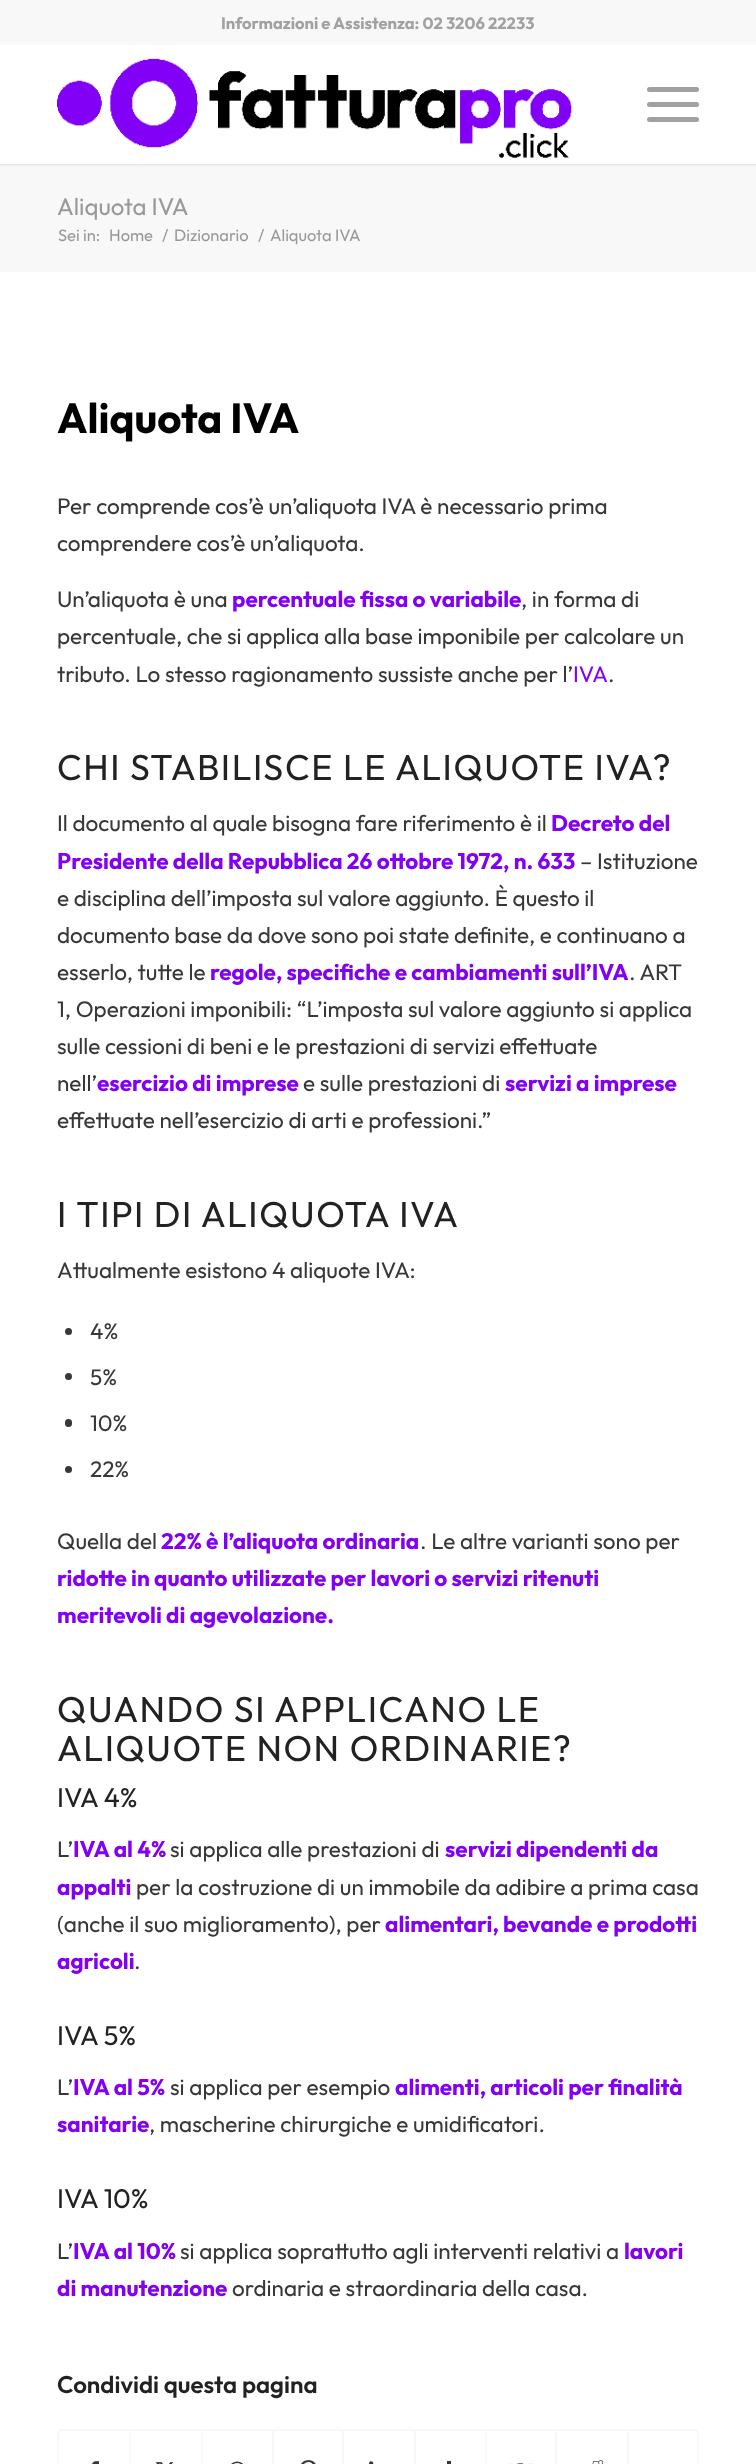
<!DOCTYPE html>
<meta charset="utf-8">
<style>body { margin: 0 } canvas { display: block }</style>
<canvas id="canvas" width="756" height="2464"></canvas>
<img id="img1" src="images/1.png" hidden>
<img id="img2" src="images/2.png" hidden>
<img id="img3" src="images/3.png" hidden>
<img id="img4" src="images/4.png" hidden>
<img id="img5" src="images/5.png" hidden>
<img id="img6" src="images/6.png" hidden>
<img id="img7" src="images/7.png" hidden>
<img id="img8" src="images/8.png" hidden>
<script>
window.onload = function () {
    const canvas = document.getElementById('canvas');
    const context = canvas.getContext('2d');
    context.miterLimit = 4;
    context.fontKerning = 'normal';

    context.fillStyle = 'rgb(255, 255, 255)';
    context.fillRect(0, 0, 756, 2464);
    context.fillStyle = 'rgb(248, 248, 248)';
    context.fillRect(0, 164, 756, 108);
    context.fillStyle = 'rgba(0, 0, 0, 0.1)';
    context.filter = 'blur(1.5px)';
    context.beginPath();
    context.rect(-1, -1, 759, 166);
    context.fill();
    context.filter = 'none';
    context.fillStyle = 'rgb(248, 248, 248)';
    context.fillRect(0, 0, 756, 45);
    context.fillStyle = 'rgb(255, 255, 255)';
    context.fillRect(0, 45, 756, 119);
    context.drawImage(document.getElementById('img1'), 57, 58, 515, 100);
    context.fillStyle = 'rgb(161, 161, 161)';
    context.beginPath();
    context.roundRect(647, 102, 52, 5, 2.5);
    context.fill();
    context.beginPath();
    context.roundRect(647, 87, 52, 5, 2.5);
    context.fill();
    context.beginPath();
    context.roundRect(647, 117, 52, 5, 2.5);
    context.fill();
    context.fillStyle = 'rgb(56, 56, 56)';
    context.beginPath();
    context.arc(68.5, 1331.5, 3.5, 0, 2 * Math.PI);
    context.fill();
    context.beginPath();
    context.arc(68.5, 1376.5, 3.5, 0, 2 * Math.PI);
    context.fill();
    context.beginPath();
    context.roundRect(65, 1419, 7, 8, 3.5);
    context.fill();
    context.beginPath();
    context.arc(68.5, 1469.5, 3.5, 0, 2 * Math.PI);
    context.fill();
    context.beginPath();
    context.roundRect(58, 2430, 640, 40, 4);
    context.strokeStyle = 'rgb(248, 248, 248)';
    context.lineWidth = 2;
    context.stroke();
    context.drawImage(document.getElementById('img2'), 92, 2461, 7, 3);
    context.fillStyle = 'rgb(248, 248, 248)';
    context.fillRect(129, 2430, 2, 34);
    context.drawImage(document.getElementById('img3'), 155, 2462, 19, 2);
    context.fillRect(201, 2430, 2, 34);
    context.drawImage(document.getElementById('img4'), 231, 2461, 12, 3);
    context.fillRect(272, 2430, 2, 34);
    context.drawImage(document.getElementById('img5'), 301, 2460, 15, 4);
    context.fillRect(342, 2430, 2, 34);
    context.drawImage(document.getElementById('img6'), 369, 2461, 5, 3);
    context.fillRect(414, 2430, 2, 34);
    context.fillStyle = 'rgb(56, 56, 56)';
    context.fillRect(447, 2461, 4, 3);
    context.fillStyle = 'rgb(248, 248, 248)';
    context.fillRect(485, 2430, 2, 34);
    context.drawImage(document.getElementById('img7'), 509, 2463, 25, 1);
    context.fillRect(555, 2430, 2, 34);
    context.drawImage(document.getElementById('img8'), 592, 2460, 12, 4);
    context.fillRect(627, 2430, 2, 34);
    context.font = 'bold 16.5px Outfit';
    context.fillStyle = 'rgb(161, 161, 161)';
    context.fillText('Informazioni e Assistenza: 02 3206 22233', 221, 29);
    context.font = '24px Outfit';
    context.fillStyle = 'rgb(153, 153, 153)';
    context.fillText('Aliquota IVA', 57, 215);
    context.font = '16.5px Outfit';
    context.fillText('Sei in:', 58, 241);
    context.fillText('Home', 109, 241);
    context.fillText('/', 162, 241);
    context.fillText('Dizionario', 174, 241);
    context.fillText('/', 258, 241);
    context.fillText('Aliquota IVA', 270, 241);
    context.font = 'bold 42px Outfit';
    context.fillStyle = 'rgb(0, 0, 0)';
    context.fillText('Aliquota IVA', 57, 433);
    context.font = '22.5px Outfit';
    context.fillStyle = 'rgb(56, 56, 56)';
    context.fillText('Per comprende cos’è un’aliquota IVA è necessario prima', 57, 514);
    context.fillText('comprendere cos’è un’aliquota.', 57, 551);
    context.fillText('Un’aliquota è una', 57, 607);
    context.font = 'bold 22.5px Outfit';
    context.fillStyle = 'rgb(131, 0, 245)';
    context.fillText('percentuale fissa o variabile', 232, 607);
    context.font = '22.5px Outfit';
    context.fillStyle = 'rgb(56, 56, 56)';
    context.fillText(', in forma di', 521, 607);
    context.fillText('percentuale, che si applica alla base imponibile per calcolare un', 57, 644);
    context.fillText('tributo. Lo stesso ragionamento sussiste anche per l’', 57, 682);
    context.fillStyle = 'rgb(131, 0, 245)';
    context.fillText('IVA', 573, 682);
    context.fillStyle = 'rgb(56, 56, 56)';
    context.fillText('.', 608, 682);
    context.letterSpacing = '1.5px';
    context.font = '36px Outfit';
    context.fillStyle = 'rgb(34, 34, 34)';
    context.fillText('CHI STABILISCE LE ALIQUOTE IVA?', 57, 780);
    context.letterSpacing = '0px';
    context.font = '22.5px Outfit';
    context.fillStyle = 'rgb(56, 56, 56)';
    context.fillText('Il documento al quale bisogna fare riferimento è il', 57, 831);
    context.font = 'bold 22.5px Outfit';
    context.fillStyle = 'rgb(131, 0, 245)';
    context.fillText('Decreto del', 551, 831);
    context.fillText('Presidente della Repubblica 26 ottobre 1972, n. 633', 57, 869);
    context.font = '22.5px Outfit';
    context.fillStyle = 'rgb(56, 56, 56)';
    context.fillText('– Istituzione', 580, 869);
    context.fillText('e disciplina dell’imposta sul valore aggiunto. È questo il', 57, 906);
    context.fillText('documento base da dove sono poi state definite, e continuano a', 57, 943);
    context.fillText('esserlo, tutte le', 57, 980);
    context.font = 'bold 22.5px Outfit';
    context.fillStyle = 'rgb(131, 0, 245)';
    context.fillText('regole, specifiche e cambiamenti sull’IVA', 210, 980);
    context.font = '22.5px Outfit';
    context.fillStyle = 'rgb(56, 56, 56)';
    context.fillText('. ART', 629, 980);
    context.fillText('1, Operazioni imponibili: “L’imposta sul valore aggiunto si applica', 57, 1017);
    context.fillText('sulle cessioni di beni e le prestazioni di servizi effettuate', 57, 1054);
    context.fillText('nell’', 57, 1091);
    context.font = 'bold 22.5px Outfit';
    context.fillStyle = 'rgb(131, 0, 245)';
    context.fillText('esercizio di imprese', 97, 1091);
    context.font = '22.5px Outfit';
    context.fillStyle = 'rgb(56, 56, 56)';
    context.fillText('e sulle prestazioni di', 303, 1091);
    context.font = 'bold 22.5px Outfit';
    context.fillStyle = 'rgb(131, 0, 245)';
    context.fillText('servizi a imprese', 505, 1091);
    context.font = '22.5px Outfit';
    context.fillStyle = 'rgb(56, 56, 56)';
    context.fillText('effettuate nell’esercizio di arti e professioni.”', 57, 1128);
    context.letterSpacing = '1.5px';
    context.font = '36px Outfit';
    context.fillStyle = 'rgb(34, 34, 34)';
    context.fillText('I TIPI DI ALIQUOTA IVA', 57, 1227);
    context.letterSpacing = '0px';
    context.font = '22.5px Outfit';
    context.fillStyle = 'rgb(56, 56, 56)';
    context.fillText('Attualmente esistono 4 aliquote IVA:', 57, 1278);
    context.fillText('4%', 90, 1339);
    context.fillText('5%', 90, 1385);
    context.fillText('10%', 90, 1431);
    context.fillText('22%', 90, 1477);
    context.fillText('Quella del', 57, 1549);
    context.font = 'bold 22.5px Outfit';
    context.fillStyle = 'rgb(131, 0, 245)';
    context.fillText('22% è l’aliquota ordinaria', 161, 1549);
    context.font = '22.5px Outfit';
    context.fillStyle = 'rgb(56, 56, 56)';
    context.fillText('. Le altre varianti sono per', 420, 1549);
    context.font = 'bold 22.5px Outfit';
    context.fillStyle = 'rgb(131, 0, 245)';
    context.fillText('ridotte in quanto utilizzate per lavori o servizi ritenuti', 57, 1586);
    context.fillText('meritevoli di agevolazione.', 57, 1623);
    context.letterSpacing = '1.5px';
    context.font = '36px Outfit';
    context.fillStyle = 'rgb(34, 34, 34)';
    context.fillText('QUANDO SI APPLICANO LE', 57, 1722);
    context.fillText('ALIQUOTE NON ORDINARIE?', 57, 1761);
    context.letterSpacing = '0px';
    context.font = '27px Outfit';
    context.fillText('IVA 4%', 57, 1807);
    context.font = '22.5px Outfit';
    context.fillStyle = 'rgb(56, 56, 56)';
    context.fillText('L’', 57, 1857);
    context.font = 'bold 22.5px Outfit';
    context.fillStyle = 'rgb(131, 0, 245)';
    context.fillText('IVA al 4%', 73, 1857);
    context.font = '22.5px Outfit';
    context.fillStyle = 'rgb(56, 56, 56)';
    context.fillText('si applica alle prestazioni di', 170, 1857);
    context.font = 'bold 22.5px Outfit';
    context.fillStyle = 'rgb(131, 0, 245)';
    context.fillText('servizi dipendenti da', 445, 1857);
    context.fillText('appalti', 57, 1895);
    context.font = '22.5px Outfit';
    context.fillStyle = 'rgb(56, 56, 56)';
    context.fillText('per la costruzione di un immobile da adibire a prima casa', 136, 1895);
    context.fillText('(anche il suo miglioramento), per', 57, 1932);
    context.font = 'bold 22.5px Outfit';
    context.fillStyle = 'rgb(131, 0, 245)';
    context.fillText('alimentari, bevande e prodotti', 385, 1932);
    context.fillText('agricoli', 57, 1969);
    context.font = '22.5px Outfit';
    context.fillStyle = 'rgb(56, 56, 56)';
    context.fillText('.', 134, 1969);
    context.font = '27px Outfit';
    context.fillStyle = 'rgb(34, 34, 34)';
    context.fillText('IVA 5%', 57, 2045);
    context.font = '22.5px Outfit';
    context.fillStyle = 'rgb(56, 56, 56)';
    context.fillText('L’', 57, 2095);
    context.font = 'bold 22.5px Outfit';
    context.fillStyle = 'rgb(131, 0, 245)';
    context.fillText('IVA al 5%', 73, 2095);
    context.font = '22.5px Outfit';
    context.fillStyle = 'rgb(56, 56, 56)';
    context.fillText('si applica per esempio', 170, 2095);
    context.font = 'bold 22.5px Outfit';
    context.fillStyle = 'rgb(131, 0, 245)';
    context.fillText('alimenti, articoli per finalità', 395, 2095);
    context.fillText('sanitarie', 57, 2132);
    context.font = '22.5px Outfit';
    context.fillStyle = 'rgb(56, 56, 56)';
    context.fillText(', mascherine chirurgiche e umidificatori.', 149, 2132);
    context.font = '27px Outfit';
    context.fillStyle = 'rgb(34, 34, 34)';
    context.fillText('IVA 10%', 57, 2208);
    context.font = '22.5px Outfit';
    context.fillStyle = 'rgb(56, 56, 56)';
    context.fillText('L’', 57, 2259);
    context.font = 'bold 22.5px Outfit';
    context.fillStyle = 'rgb(131, 0, 245)';
    context.fillText('IVA al 10%', 73, 2259);
    context.font = '22.5px Outfit';
    context.fillStyle = 'rgb(56, 56, 56)';
    context.fillText('si applica soprattutto agli interventi relativi a', 180, 2259);
    context.font = 'bold 22.5px Outfit';
    context.fillStyle = 'rgb(131, 0, 245)';
    context.fillText('lavori', 624, 2259);
    context.fillText('di manutenzione', 57, 2296);
    context.font = '22.5px Outfit';
    context.fillStyle = 'rgb(56, 56, 56)';
    context.fillText('ordinaria e straordinaria della casa.', 232, 2296);
    context.font = '600 24px Outfit';
    context.fillStyle = 'rgb(34, 34, 34)';
    context.fillText('Condividi questa pagina', 57, 2393);
};
</script>
